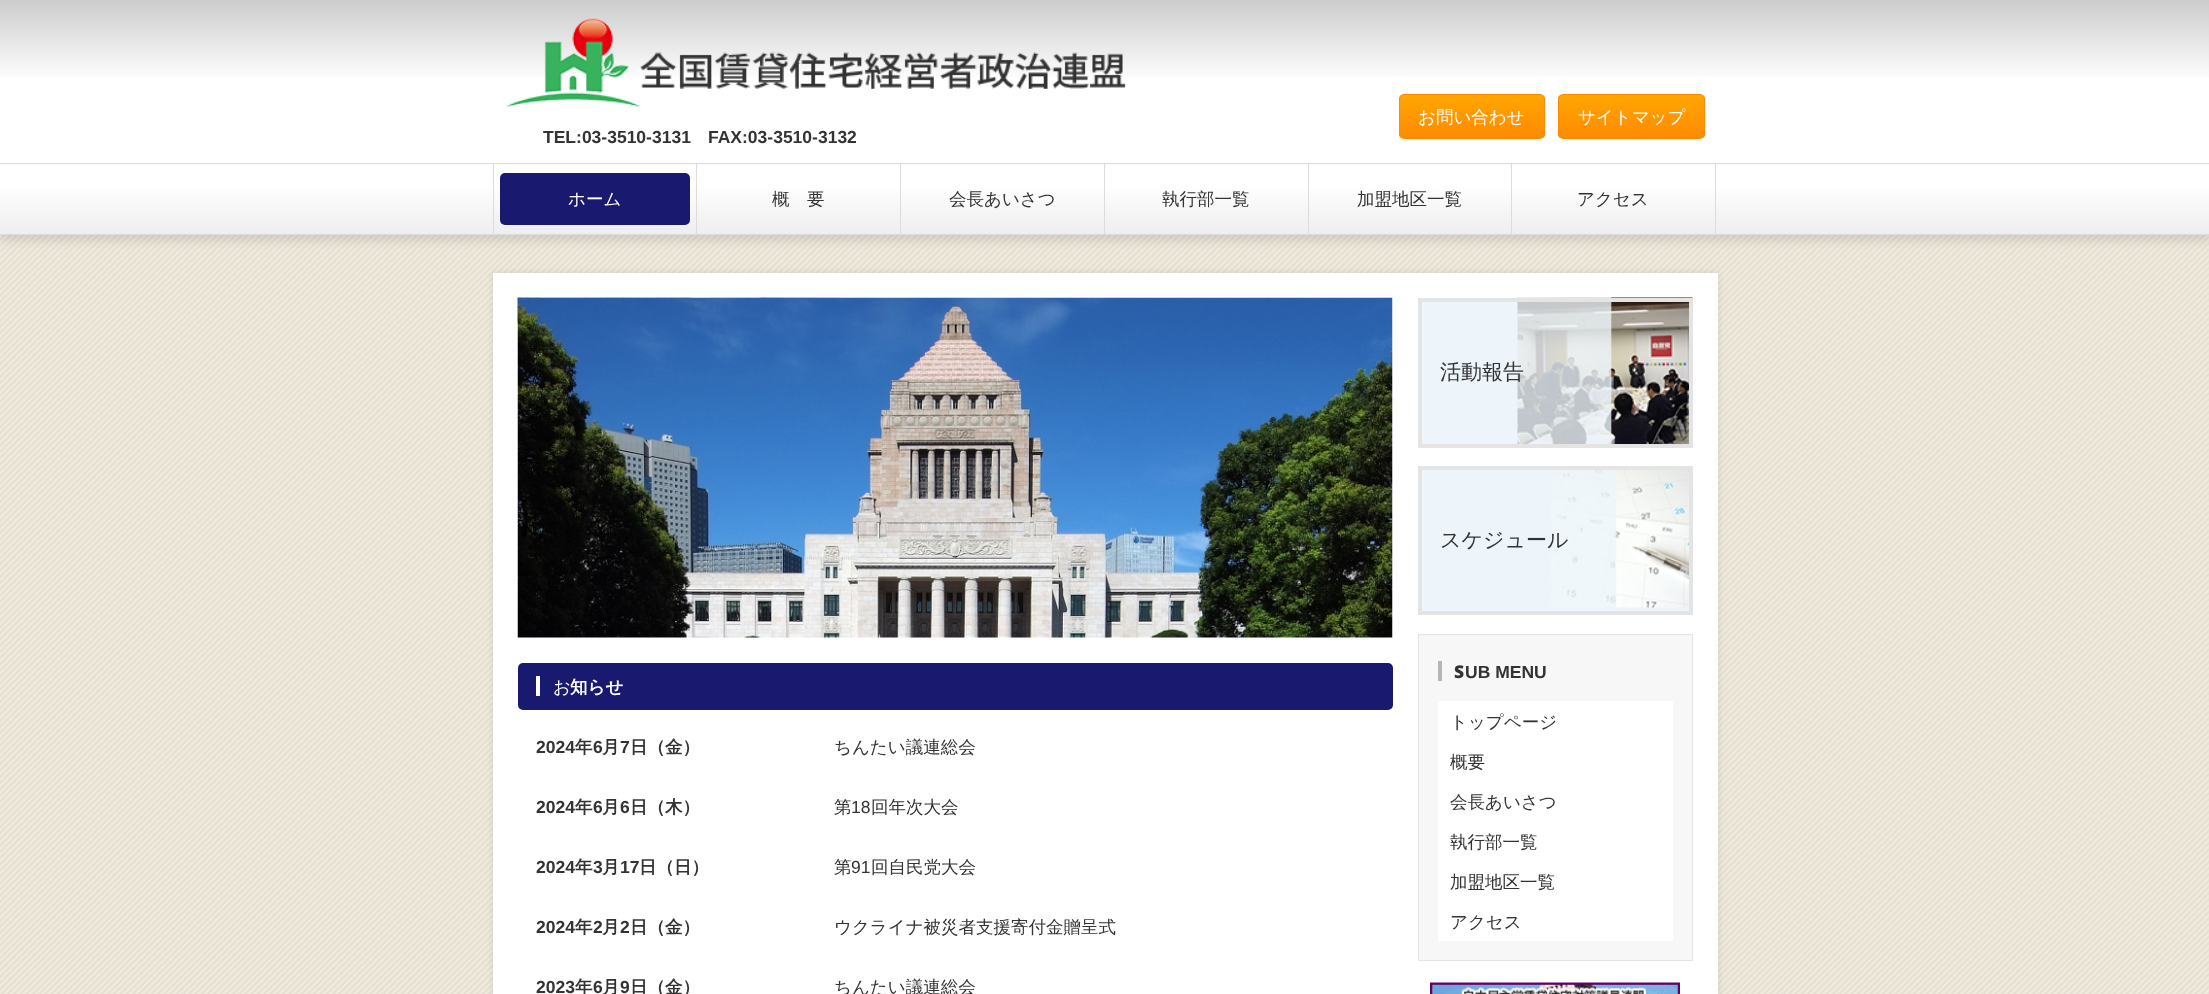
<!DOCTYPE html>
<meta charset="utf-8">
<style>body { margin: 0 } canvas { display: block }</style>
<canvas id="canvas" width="2209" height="994"></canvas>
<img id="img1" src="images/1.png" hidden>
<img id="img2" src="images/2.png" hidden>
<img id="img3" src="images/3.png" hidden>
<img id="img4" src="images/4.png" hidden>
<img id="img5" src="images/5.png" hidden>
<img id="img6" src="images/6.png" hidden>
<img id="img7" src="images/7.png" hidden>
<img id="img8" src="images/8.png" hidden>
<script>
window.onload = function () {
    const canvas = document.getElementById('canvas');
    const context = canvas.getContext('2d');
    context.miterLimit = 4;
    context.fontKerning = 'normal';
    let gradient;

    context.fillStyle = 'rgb(255, 255, 255)';
    context.fillRect(0, 0, 2209, 994);
    context.drawImage(document.getElementById('img1'), 0, 235, 2209, 759);
    gradient = context.createLinearGradient(1105, 0, 1105, 163);
    gradient.addColorStop(0, 'rgb(204, 204, 204)');
    gradient.addColorStop(0.5, 'rgb(255, 255, 255)');
    context.fillStyle = gradient;
    context.fillRect(0, 0, 2209, 78);
    context.drawImage(document.getElementById('img2'), 505, 18, 621, 90);
    context.save();
    context.beginPath();
    context.roundRect(1399, 94, 146, 45, 5);
    context.clip();
    gradient = context.createLinearGradient(1472, 95, 1472, 138);
    gradient.addColorStop(0, 'rgb(255, 166, 0)');
    gradient.addColorStop(1, 'rgb(255, 138, 0)');
    context.fillStyle = gradient;
    context.fillRect(1399, 95, 146, 43);
    context.restore();
    context.beginPath();
    context.roundRect(1399.5, 94.5, 145, 44, 4.5);
    context.strokeStyle = 'rgb(255, 138, 0)';
    context.stroke();
    context.save();
    context.beginPath();
    context.roundRect(1558, 94, 147, 45, 5);
    context.clip();
    gradient = context.createLinearGradient(1631, 95, 1631, 138);
    gradient.addColorStop(0, 'rgb(255, 166, 0)');
    gradient.addColorStop(1, 'rgb(255, 138, 0)');
    context.fillStyle = gradient;
    context.fillRect(1558, 95, 147, 43);
    context.restore();
    context.beginPath();
    context.roundRect(1558.5, 94.5, 146, 44, 4.5);
    context.stroke();
    context.fillStyle = 'rgba(0, 0, 0, 0.1)';
    context.filter = 'blur(4px)';
    context.beginPath();
    context.rect(0, 169, 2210, 72);
    context.fill();
    context.filter = 'none';
    gradient = context.createLinearGradient(1105, 164, 1105, 234);
    gradient.addColorStop(0.3, 'rgb(255, 255, 255)');
    gradient.addColorStop(1, 'rgb(238, 238, 238)');
    context.fillStyle = gradient;
    context.fillRect(0, 164, 2209, 70);
    context.fillStyle = 'rgb(220, 220, 220)';
    context.fillRect(0, 163, 2209, 1);
    context.fillRect(0, 234, 2209, 1);
    context.fillRect(493, 164, 1, 70);
    context.fillRect(696, 164, 1, 70);
    context.fillStyle = 'rgb(25, 25, 112)';
    context.beginPath();
    context.roundRect(500, 173, 190, 52, 5);
    context.fill();
    context.fillStyle = 'rgb(220, 220, 220)';
    context.fillRect(900, 164, 1, 70);
    context.fillRect(1104, 164, 1, 70);
    context.fillRect(1308, 164, 1, 70);
    context.fillRect(1511, 164, 1, 70);
    context.fillRect(1715, 164, 1, 70);
    context.fillStyle = 'rgba(0, 0, 0, 0.1)';
    context.filter = 'blur(3px)';
    context.beginPath();
    context.rect(493, 273, 1225, 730);
    context.fill();
    context.filter = 'none';
    context.fillStyle = 'rgb(255, 255, 255)';
    context.fillRect(493, 273, 1225, 721);
    context.drawImage(document.getElementById('img3'), 517, 297, 860, 181);
    context.drawImage(document.getElementById('img4'), 517, 297, 729, 181);
    context.drawImage(document.getElementById('img5'), 517, 297, 876, 341);
    context.fillStyle = 'rgb(25, 25, 112)';
    context.beginPath();
    context.roundRect(518, 663, 875, 47, 5);
    context.fill();
    context.fillStyle = 'rgb(255, 255, 255)';
    context.fillRect(536, 676, 4, 20);
    context.fillStyle = 'rgb(237, 245, 250)';
    context.fillRect(1422, 302, 96, 142);
    context.drawImage(document.getElementById('img6'), 1517, 297, 176, 147);
    context.strokeStyle = 'rgb(228, 228, 228)';
    context.lineWidth = 4;
    context.strokeRect(1420, 300, 271, 146);
    context.fillRect(1422, 470, 267, 141);
    context.drawImage(document.getElementById('img7'), 1551, 470, 138, 138);
    context.strokeRect(1420, 468, 271, 145);
    context.fillStyle = 'rgb(247, 247, 247)';
    context.beginPath();
    context.rect(1418.5, 634.5, 274, 326);
    context.fill();
    context.lineWidth = 1;
    context.stroke();
    context.fillStyle = 'rgb(181, 181, 181)';
    context.fillRect(1438, 661, 4, 20);
    context.fillStyle = 'rgb(255, 255, 255)';
    context.fillRect(1438, 701, 235, 240);
    context.drawImage(document.getElementById('img8'), 1430, 982, 250, 12);
    context.font = '500 17.5px WenQuanYi Zen Hei';
    context.fillText('お問い合わせ', 1418, 123);
    context.fillText('サイトマップ', 1578, 123);
    context.font = 'bold 17.5px Liberation Sans';
    context.fillStyle = 'rgb(51, 51, 51)';
    context.fillText('TEL:03-3510-3131', 543, 143);
    context.fillText('FAX:03-3510-3132', 708, 143);
    context.font = '500 17.5px WenQuanYi Zen Hei';
    context.fillStyle = 'rgb(255, 255, 255)';
    context.fillText('ホーム', 568, 205);
    context.fillStyle = 'rgb(51, 51, 51)';
    context.fillText('概　要', 772, 205);
    context.fillText('会長あいさつ', 949, 205);
    context.fillText('執行部一覧', 1162, 205);
    context.fillText('加盟地区一覧', 1357, 205);
    context.fillText('アクセス', 1577, 205);
    context.font = '100 17.5px Noto Sans';
    context.fillStyle = 'rgb(255, 255, 255)';
    context.fillText('お', 553, 693);
    context.font = 'bold 17.5px WenQuanYi Zen Hei';
    context.fillText('知らせ', 570, 693);
    context.font = 'bold 17.5px Liberation Sans';
    context.fillStyle = 'rgb(51, 51, 51)';
    context.fillText('2024', 536, 753);
    context.font = 'bold 17.5px WenQuanYi Zen Hei';
    context.fillText('年', 575, 753);
    context.font = 'bold 17.5px Liberation Sans';
    context.fillText('6', 593, 753);
    context.font = 'bold 17.5px WenQuanYi Zen Hei';
    context.fillText('月', 602, 753);
    context.font = 'bold 17.5px Liberation Sans';
    context.fillText('7', 620, 753);
    context.font = 'bold 17.5px WenQuanYi Zen Hei';
    context.fillText('日（金）', 630, 753);
    context.font = '500 17.5px WenQuanYi Zen Hei';
    context.fillText('ちんたい議連総会', 834, 753);
    context.font = 'bold 17.5px Liberation Sans';
    context.fillText('2024', 536, 813);
    context.font = 'bold 17.5px WenQuanYi Zen Hei';
    context.fillText('年', 575, 813);
    context.font = 'bold 17.5px Liberation Sans';
    context.fillText('6', 593, 813);
    context.font = 'bold 17.5px WenQuanYi Zen Hei';
    context.fillText('月', 602, 813);
    context.font = 'bold 17.5px Liberation Sans';
    context.fillText('6', 620, 813);
    context.font = 'bold 17.5px WenQuanYi Zen Hei';
    context.fillText('日（木）', 630, 813);
    context.font = '500 17.5px WenQuanYi Zen Hei';
    context.fillText('第', 834, 813);
    context.font = '17.5px Liberation Sans';
    context.fillText('18', 851, 813);
    context.font = '500 17.5px WenQuanYi Zen Hei';
    context.fillText('回年次大会', 871, 813);
    context.font = 'bold 17.5px Liberation Sans';
    context.fillText('2024', 536, 873);
    context.font = 'bold 17.5px WenQuanYi Zen Hei';
    context.fillText('年', 575, 873);
    context.font = 'bold 17.5px Liberation Sans';
    context.fillText('3', 593, 873);
    context.font = 'bold 17.5px WenQuanYi Zen Hei';
    context.fillText('月', 602, 873);
    context.font = 'bold 17.5px Liberation Sans';
    context.fillText('17', 620, 873);
    context.font = 'bold 17.5px WenQuanYi Zen Hei';
    context.fillText('日（日）', 639, 873);
    context.font = '500 17.5px WenQuanYi Zen Hei';
    context.fillText('第', 834, 873);
    context.font = '17.5px Liberation Sans';
    context.fillText('91', 851, 873);
    context.font = '500 17.5px WenQuanYi Zen Hei';
    context.fillText('回自民党大会', 871, 873);
    context.font = 'bold 17.5px Liberation Sans';
    context.fillText('2024', 536, 933);
    context.font = 'bold 17.5px WenQuanYi Zen Hei';
    context.fillText('年', 575, 933);
    context.font = 'bold 17.5px Liberation Sans';
    context.fillText('2', 593, 933);
    context.font = 'bold 17.5px WenQuanYi Zen Hei';
    context.fillText('月', 602, 933);
    context.font = 'bold 17.5px Liberation Sans';
    context.fillText('2', 620, 933);
    context.font = 'bold 17.5px WenQuanYi Zen Hei';
    context.fillText('日（金）', 630, 933);
    context.font = '500 17.5px WenQuanYi Zen Hei';
    context.fillText('ウクライナ被災者支援寄付金贈呈式', 834, 933);
    context.font = 'bold 17.5px Liberation Sans';
    context.fillText('2023', 536, 993);
    context.font = 'bold 17.5px WenQuanYi Zen Hei';
    context.fillText('年', 575, 993);
    context.font = 'bold 17.5px Liberation Sans';
    context.fillText('6', 593, 993);
    context.font = 'bold 17.5px WenQuanYi Zen Hei';
    context.fillText('月', 602, 993);
    context.font = 'bold 17.5px Liberation Sans';
    context.fillText('9', 620, 993);
    context.font = 'bold 17.5px WenQuanYi Zen Hei';
    context.fillText('日（金）', 630, 993);
    context.font = '500 17.5px WenQuanYi Zen Hei';
    context.fillText('ちんたい議連総会', 834, 993);
    context.font = '500 21px WenQuanYi Zen Hei';
    context.fillText('活動報告', 1440, 379);
    context.fillText('スケジュール', 1440, 547);
    context.font = '900 17.5px Noto Sans';
    context.fillText('S', 1454, 678);
    context.font = 'bold 17.5px Liberation Sans';
    context.fillText('UB MENU', 1465, 678);
    context.font = '500 17.5px WenQuanYi Zen Hei';
    context.fillText('トップページ', 1450, 728);
    context.fillText('概要', 1450, 768);
    context.fillText('会長あいさつ', 1450, 808);
    context.fillText('執行部一覧', 1450, 848);
    context.fillText('加盟地区一覧', 1450, 888);
    context.fillText('アクセス', 1450, 928);
};
</script>
